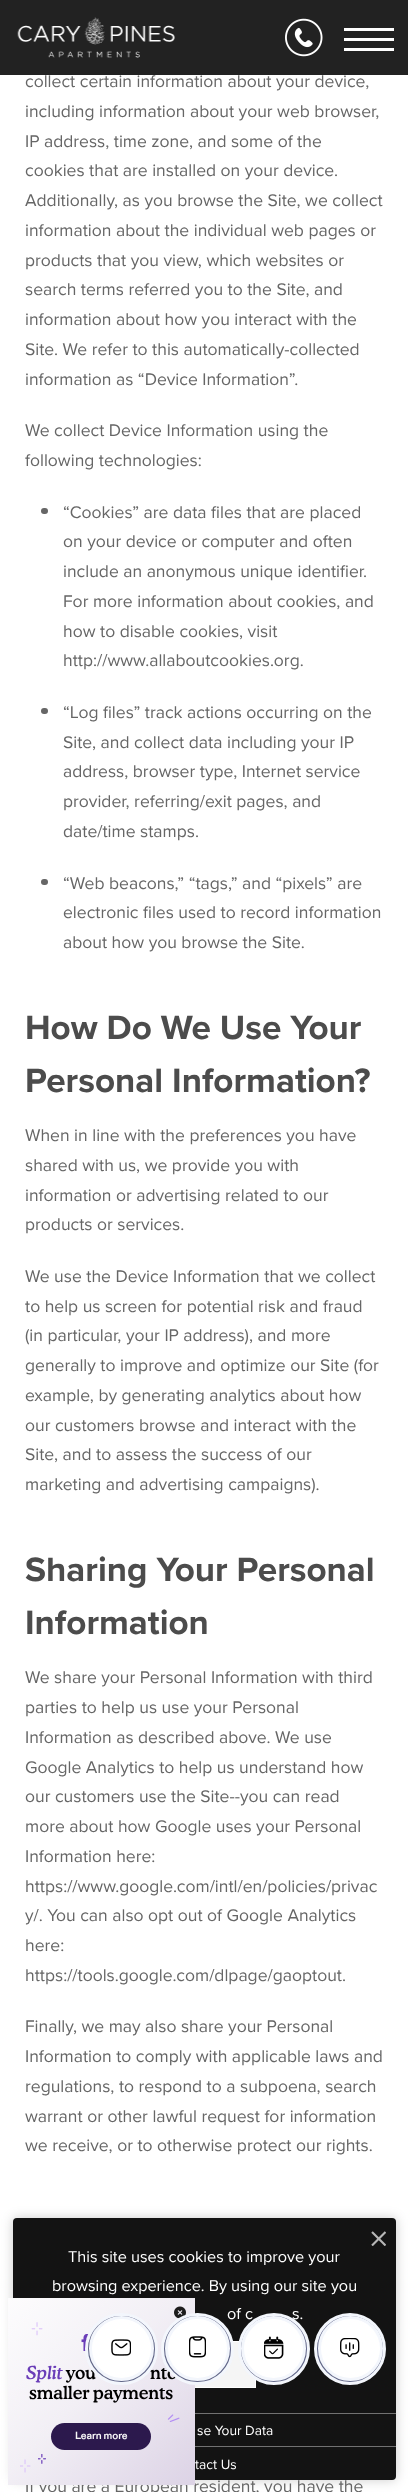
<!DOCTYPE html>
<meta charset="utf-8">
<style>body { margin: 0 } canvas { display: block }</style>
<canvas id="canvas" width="408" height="2492"></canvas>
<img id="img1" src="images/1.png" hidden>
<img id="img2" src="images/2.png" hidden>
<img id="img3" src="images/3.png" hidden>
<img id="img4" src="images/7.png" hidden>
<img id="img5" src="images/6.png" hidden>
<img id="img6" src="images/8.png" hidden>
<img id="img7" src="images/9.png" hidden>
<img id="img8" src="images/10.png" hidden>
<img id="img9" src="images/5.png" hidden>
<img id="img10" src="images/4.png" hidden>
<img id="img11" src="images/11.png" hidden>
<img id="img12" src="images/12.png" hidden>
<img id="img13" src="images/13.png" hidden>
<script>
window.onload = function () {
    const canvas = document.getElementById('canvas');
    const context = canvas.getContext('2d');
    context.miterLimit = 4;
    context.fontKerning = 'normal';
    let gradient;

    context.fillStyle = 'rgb(255, 255, 255)';
    context.fillRect(0, 0, 408, 2492);
    context.fillStyle = 'rgb(34, 34, 34)';
    context.fillRect(0, 0, 408, 75);
    context.drawImage(document.getElementById('img1'), 17, 17, 158, 41);
    context.drawImage(document.getElementById('img2'), 285, 18, 38, 39);
    context.fillStyle = 'rgb(255, 255, 255)';
    context.fillRect(344, 28, 50, 3);
    context.fillRect(344, 38, 50, 3);
    context.fillRect(344, 48, 50, 3);
    context.fillStyle = 'rgb(102, 102, 102)';
    context.beginPath();
    context.roundRect(41, 508, 7, 6, 3);
    context.fill();
    context.beginPath();
    context.roundRect(41, 708, 7, 6, 3);
    context.fill();
    context.beginPath();
    context.roundRect(41, 879, 7, 6, 3);
    context.fill();
    context.fillStyle = 'rgba(0, 0, 0, 0.2)';
    context.filter = 'blur(6px)';
    context.beginPath();
    context.roundRect(13, 2218, 383, 262, 4);
    context.fill();
    context.filter = 'none';
    context.fillStyle = 'rgb(19, 19, 19)';
    context.beginPath();
    context.roundRect(13, 2218, 383, 262, 4);
    context.fill();
    context.drawImage(document.getElementById('img3'), 371, 2231, 15, 15);
    context.fillStyle = 'rgb(245, 245, 245)';
    context.fillRect(195, 2342, 60, 45);
    context.strokeStyle = 'rgb(255, 255, 255)';
    context.strokeRect(153.5, 2341.5, 102, 46);
    context.fillStyle = 'rgb(113, 113, 113)';
    context.fillRect(195, 2413, 201, 1);
    context.fillRect(195, 2446, 201, 1);
    context.fillStyle = 'rgb(99, 104, 137)';
    context.beginPath();
    context.arc(350, 2349, 34.5, 0, 2 * Math.PI);
    context.fill();
    context.strokeStyle = 'rgb(243, 246, 252)';
    context.lineWidth = 3;
    context.stroke();
    context.fillStyle = 'rgb(255, 255, 255)';
    context.beginPath();
    context.arc(350.5, 2348.5, 31, 0, 2 * Math.PI);
    context.fill();
    context.stroke();
    context.drawImage(document.getElementById('img4'), 340, 2338, 20, 20);
    context.font = '17.5px Proxima Nova';
    context.fillStyle = 'rgb(102, 102, 102)';
    context.fillText('collect certain information about your device,', 25, 87);
    context.fillText('including information about your web browser,', 25, 117);
    context.fillText('IP address, time zone, and some of the', 25, 147);
    context.fillText('cookies that are installed on your device.', 25, 176);
    context.fillText('Additionally, as you browse the Site, we collect', 25, 206);
    context.fillText('information about the individual web pages or', 25, 236);
    context.fillText('products that you view, which websites or', 25, 266);
    context.fillText('search terms referred you to the Site, and', 25, 295);
    context.fillText('information about how you interact with the', 25, 325);
    context.fillText('Site. We refer to this automatically-collected', 25, 355);
    context.fillText('information as “Device Information”.', 25, 385);
    context.fillText('We collect Device Information using the', 25, 436);
    context.fillText('following technologies:', 25, 466);
    context.fillText('“Cookies” are data files that are placed', 63, 518);
    context.fillText('on your device or computer and often', 63, 547);
    context.fillText('include an anonymous unique identifier.', 63, 577);
    context.fillText('For more information about cookies, and', 63, 607);
    context.fillText('how to disable cookies, visit', 63, 637);
    context.fillText('http://www.allaboutcookies.org.', 63, 666);
    context.fillText('“Log files” track actions occurring on the', 63, 718);
    context.fillText('Site, and collect data including your IP', 63, 748);
    context.fillText('address, browser type, Internet service', 63, 777);
    context.fillText('provider, referring/exit pages, and', 63, 807);
    context.fillText('date/time stamps.', 63, 837);
    context.fillText('“Web beacons,” “tags,” and “pixels” are', 63, 889);
    context.fillText('electronic files used to record information', 63, 918);
    context.fillText('about how you browse the Site.', 63, 948);
    context.font = 'bold 35px Proxima Nova';
    context.fillStyle = 'rgb(76, 76, 76)';
    context.fillText('How Do We Use Your', 25, 1039);
    context.fillText('Personal Information?', 25, 1092);
    context.font = '17.5px Proxima Nova';
    context.fillStyle = 'rgb(102, 102, 102)';
    context.fillText('When in line with the preferences you have', 25, 1141);
    context.fillText('shared with us, we provide you with', 25, 1171);
    context.fillText('information or advertising related to our', 25, 1201);
    context.fillText('products or services.', 25, 1230);
    context.fillText('We use the Device Information that we collect', 25, 1282);
    context.fillText('to help us screen for potential risk and fraud', 25, 1312);
    context.fillText('(in particular, your IP address), and more', 25, 1341);
    context.fillText('generally to improve and optimize our Site (for', 25, 1371);
    context.fillText('example, by generating analytics about how', 25, 1401);
    context.fillText('our customers browse and interact with the', 25, 1431);
    context.fillText('Site, and to assess the success of our', 25, 1460);
    context.fillText('marketing and advertising campaigns).', 25, 1490);
    context.font = 'bold 35px Proxima Nova';
    context.fillStyle = 'rgb(76, 76, 76)';
    context.fillText('Sharing Your Personal', 25, 1581);
    context.fillText('Information', 25, 1634);
    context.font = '17.5px Proxima Nova';
    context.fillStyle = 'rgb(102, 102, 102)';
    context.fillText('We share your Personal Information with third', 25, 1683);
    context.fillText('parties to help us use your Personal', 25, 1713);
    context.fillText('Information as described above. We use', 25, 1743);
    context.fillText('Google Analytics to help us understand how', 25, 1773);
    context.fillText('our customers use the Site--you can read', 25, 1802);
    context.fillText('more about how Google uses your Personal', 25, 1832);
    context.fillText('Information here:', 25, 1862);
    context.fillText('https://www.google.com/intl/en/policies/privac', 25, 1892);
    context.fillText('y/. You can also opt out of Google Analytics', 25, 1921);
    context.fillText('here:', 25, 1951);
    context.fillText('https://tools.google.com/dlpage/gaoptout.', 25, 1981);
    context.fillText('Finally, we may also share your Personal', 25, 2032);
    context.fillText('Information to comply with applicable laws and', 25, 2062);
    context.fillText('regulations, to respond to a subpoena, search', 25, 2092);
    context.fillText('warrant or other lawful request for information', 25, 2122);
    context.fillText('we receive, or to otherwise protect our rights.', 25, 2151);
    context.fillText('If you are a European resident, you have the', 25, 2492);
    context.font = '16.25px Proxima Nova';
    context.fillStyle = 'rgb(255, 255, 255)';
    context.fillText('This site uses cookies to improve your', 68, 2262);
    context.fillText('browsing experience. By using our site you', 52, 2291);
    context.fillText('of c', 227, 2319);
    context.fillText('s.', 292, 2319);
    context.font = '13.75px Proxima Nova';
    context.fillText('se Your Data', 197, 2435);
    context.fillText('tact Us', 195, 2469);
    context.fillStyle = 'rgb(99, 104, 137)';
    context.beginPath();
    context.arc(274, 2349, 34.5, 0, 2 * Math.PI);
    context.fill();
    context.stroke();
    context.fillStyle = 'rgb(255, 255, 255)';
    context.beginPath();
    context.arc(273.5, 2348.5, 31, 0, 2 * Math.PI);
    context.fill();
    context.stroke();
    context.drawImage(document.getElementById('img5'), 264, 2336, 20, 23);
    gradient = context.createLinearGradient(224, 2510, -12, 2282);
    gradient.addColorStop(0, 'rgb(214, 203, 225)');
    gradient.addColorStop(0.55, 'rgb(242, 239, 245)');
    gradient.addColorStop(1, 'rgb(255, 255, 255)');
    context.fillStyle = gradient;
    context.fillRect(8, 2298, 187, 187);
    context.drawImage(document.getElementById('img6'), 174, 2306, 12, 13);
    context.drawImage(document.getElementById('img7'), 31, 2322, 12, 14);
    context.drawImage(document.getElementById('img8'), 81, 2334, 8, 17);
    context.letterSpacing = '-0.2px';
    context.font = 'italic 18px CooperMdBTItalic';
    context.fillStyle = 'rgb(106, 61, 184)';
    context.fillText('Split', 26, 2379);
    context.font = '18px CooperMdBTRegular';
    context.fillStyle = 'rgb(0, 0, 0)';
    context.fillText('you', 66, 2379);
    context.fillText('nto', 150, 2379);
    context.fillStyle = 'rgb(99, 104, 137)';
    context.beginPath();
    context.roundRect(162.5, 2314.5, 70, 69, 34.5);
    context.fill();
    context.stroke();
    context.fillStyle = 'rgb(255, 255, 255)';
    context.beginPath();
    context.arc(197.5, 2348.5, 31, 0, 2 * Math.PI);
    context.fill();
    context.stroke();
    context.drawImage(document.getElementById('img9'), 189, 2336, 17, 22);
    context.fillStyle = 'rgb(99, 104, 137)';
    context.beginPath();
    context.roundRect(86.5, 2314.5, 70, 69, 34.5);
    context.fill();
    context.stroke();
    context.fillStyle = 'rgb(255, 255, 255)';
    context.beginPath();
    context.arc(121.5, 2348.5, 31, 0, 2 * Math.PI);
    context.fill();
    context.stroke();
    context.drawImage(document.getElementById('img10'), 111, 2339, 20, 17);
    context.fillStyle = 'rgb(0, 0, 0)';
    context.fillText('smaller payments', 29, 2399);
    context.drawImage(document.getElementById('img11'), 167, 2414, 13, 8);
    context.fillStyle = 'rgb(44, 25, 77)';
    context.beginPath();
    context.roundRect(51, 2423, 100, 27, 13.5);
    context.fill();
    context.letterSpacing = '-0.1px';
    context.font = 'bold 10.5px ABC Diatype';
    context.fillStyle = 'rgb(247, 247, 247)';
    context.fillText('Learn more', 75, 2439);
    context.drawImage(document.getElementById('img12'), 20, 2459, 11, 14);
    context.drawImage(document.getElementById('img13'), 38, 2454, 8, 10);
};
</script>
